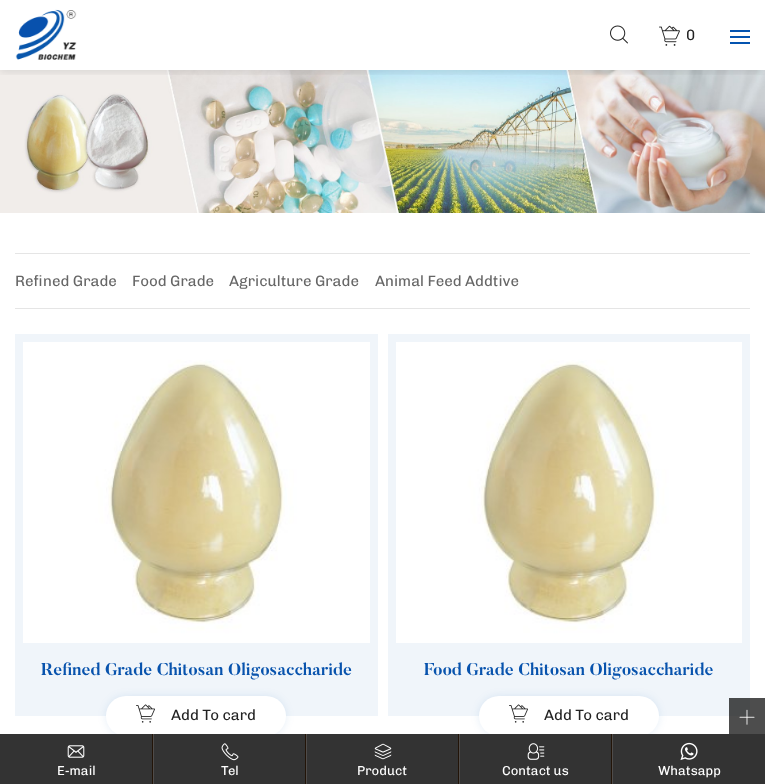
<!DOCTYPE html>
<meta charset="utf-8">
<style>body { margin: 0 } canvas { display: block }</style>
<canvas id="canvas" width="765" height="784"></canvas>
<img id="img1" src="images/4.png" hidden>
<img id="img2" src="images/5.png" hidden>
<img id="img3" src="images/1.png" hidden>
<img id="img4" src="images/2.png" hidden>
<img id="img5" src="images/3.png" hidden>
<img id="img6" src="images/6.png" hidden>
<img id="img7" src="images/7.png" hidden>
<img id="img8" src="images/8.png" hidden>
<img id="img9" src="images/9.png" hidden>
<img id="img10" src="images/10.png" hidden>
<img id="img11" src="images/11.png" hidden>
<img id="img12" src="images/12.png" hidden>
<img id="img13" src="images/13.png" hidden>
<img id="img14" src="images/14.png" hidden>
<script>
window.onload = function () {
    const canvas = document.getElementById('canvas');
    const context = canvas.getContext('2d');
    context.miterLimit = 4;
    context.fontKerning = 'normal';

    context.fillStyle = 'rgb(255, 255, 255)';
    context.fillRect(0, 0, 765, 784);
    context.fillStyle = 'rgb(77, 77, 77)';
    context.fillRect(729, 698, 36, 36);
    context.drawImage(document.getElementById('img1'), 0, 70, 765, 143);
    context.drawImage(document.getElementById('img2'), 27, 70, 693, 143);
    context.save();
    context.beginPath();
    context.rect(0, 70, 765, 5);
    context.clip();
    context.fillStyle = 'rgba(0, 0, 0, 0.1)';
    context.filter = 'blur(4px)';
    context.beginPath();
    context.rect(0, 2, 765, 70);
    context.fill();
    context.filter = 'none';
    context.restore();
    context.drawImage(document.getElementById('img3'), 15, 9, 62, 51);
    context.drawImage(document.getElementById('img4'), 610, 25, 18, 19);
    context.drawImage(document.getElementById('img5'), 659, 25, 21, 21);
    context.fillStyle = 'rgb(4, 84, 176)';
    context.fillRect(730, 30, 20, 2);
    context.fillRect(730, 36, 20, 2);
    context.fillRect(730, 42, 20, 2);
    context.fillStyle = 'rgb(229, 229, 229)';
    context.fillRect(15, 253, 735, 1);
    context.fillRect(15, 308, 735, 1);
    context.fillStyle = 'rgb(240, 245, 250)';
    context.fillRect(15, 334, 363, 382);
    context.drawImage(document.getElementById('img6'), 23, 342, 347, 301);
    context.fillStyle = 'rgba(4, 84, 176, 0.1)';
    context.filter = 'blur(4px)';
    context.beginPath();
    context.roundRect(106, 696, 180, 40, 20);
    context.fill();
    context.filter = 'none';
    context.fillStyle = 'rgb(255, 255, 255)';
    context.beginPath();
    context.roundRect(106, 696, 180, 40, 20);
    context.fill();
    context.drawImage(document.getElementById('img7'), 136, 704, 19, 19);
    context.fillStyle = 'rgb(240, 245, 250)';
    context.fillRect(388, 334, 362, 382);
    context.fillStyle = 'rgb(72, 74, 75)';
    context.fillRect(729, 698, 21, 18);
    context.drawImage(document.getElementById('img8'), 396, 342, 346, 301);
    context.fillStyle = 'rgba(4, 84, 176, 0.1)';
    context.filter = 'blur(4px)';
    context.beginPath();
    context.roundRect(479, 696, 180, 40, 20);
    context.fill();
    context.filter = 'none';
    context.fillStyle = 'rgb(255, 255, 255)';
    context.beginPath();
    context.roundRect(479, 696, 180, 40, 20);
    context.fill();
    context.drawImage(document.getElementById('img7'), 509, 704, 19, 19);
    context.drawImage(document.getElementById('img9'), 739, 709, 16, 16);
    context.fillStyle = 'rgb(51, 51, 51)';
    context.fillRect(0, 734, 765, 50);
    context.fillStyle = 'rgb(34, 20, 8)';
    context.fillRect(152, 734, 1, 50);
    context.drawImage(document.getElementById('img10'), 67, 745, 18, 13);
    context.fillRect(305, 734, 1, 50);
    context.fillStyle = 'rgb(79, 76, 74)';
    context.fillRect(153, 734, 1, 50);
    context.drawImage(document.getElementById('img11'), 221, 743, 18, 18);
    context.fillStyle = 'rgb(34, 20, 8)';
    context.fillRect(458, 734, 1, 50);
    context.fillStyle = 'rgb(79, 76, 74)';
    context.fillRect(306, 734, 1, 50);
    context.drawImage(document.getElementById('img12'), 374, 743, 18, 17);
    context.fillStyle = 'rgb(34, 20, 8)';
    context.fillRect(611, 734, 1, 50);
    context.fillStyle = 'rgb(79, 76, 74)';
    context.fillRect(459, 734, 1, 50);
    context.drawImage(document.getElementById('img13'), 527, 743, 18, 17);
    context.fillRect(612, 734, 1, 50);
    context.drawImage(document.getElementById('img14'), 680, 742, 18, 19);
    context.font = '15px Chivo';
    context.fillStyle = 'rgb(34, 34, 34)';
    context.fillText('0', 686, 40);
    context.fillStyle = 'rgb(102, 102, 102)';
    context.fillText('Refined Grade', 15, 286);
    context.fillText('Food Grade', 132, 286);
    context.fillText('Agriculture Grade', 229, 286);
    context.fillText('Animal Feed Addtive', 375, 286);
    context.font = 'bold 17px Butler';
    context.fillStyle = 'rgb(8, 83, 173)';
    context.fillText('Refined Grade Chitosan Oligosaccharide', 41, 675);
    context.font = '15px Chivo';
    context.fillStyle = 'rgb(34, 34, 34)';
    context.fillText('Add To card', 171, 720);
    context.font = 'bold 17px Butler';
    context.fillStyle = 'rgb(8, 83, 173)';
    context.fillText('Food Grade Chitosan Oligosaccharide', 424, 675);
    context.font = '15px Chivo';
    context.fillStyle = 'rgb(34, 34, 34)';
    context.fillText('Add To card', 544, 720);
    context.font = '13px Chivo';
    context.fillStyle = 'rgb(255, 255, 255)';
    context.fillText('E-mail', 57, 775);
    context.fillText('Tel', 221, 775);
    context.fillText('Product', 357, 775);
    context.fillText('Contact us', 502, 775);
    context.fillText('Whatsapp', 658, 775);
};
</script>
